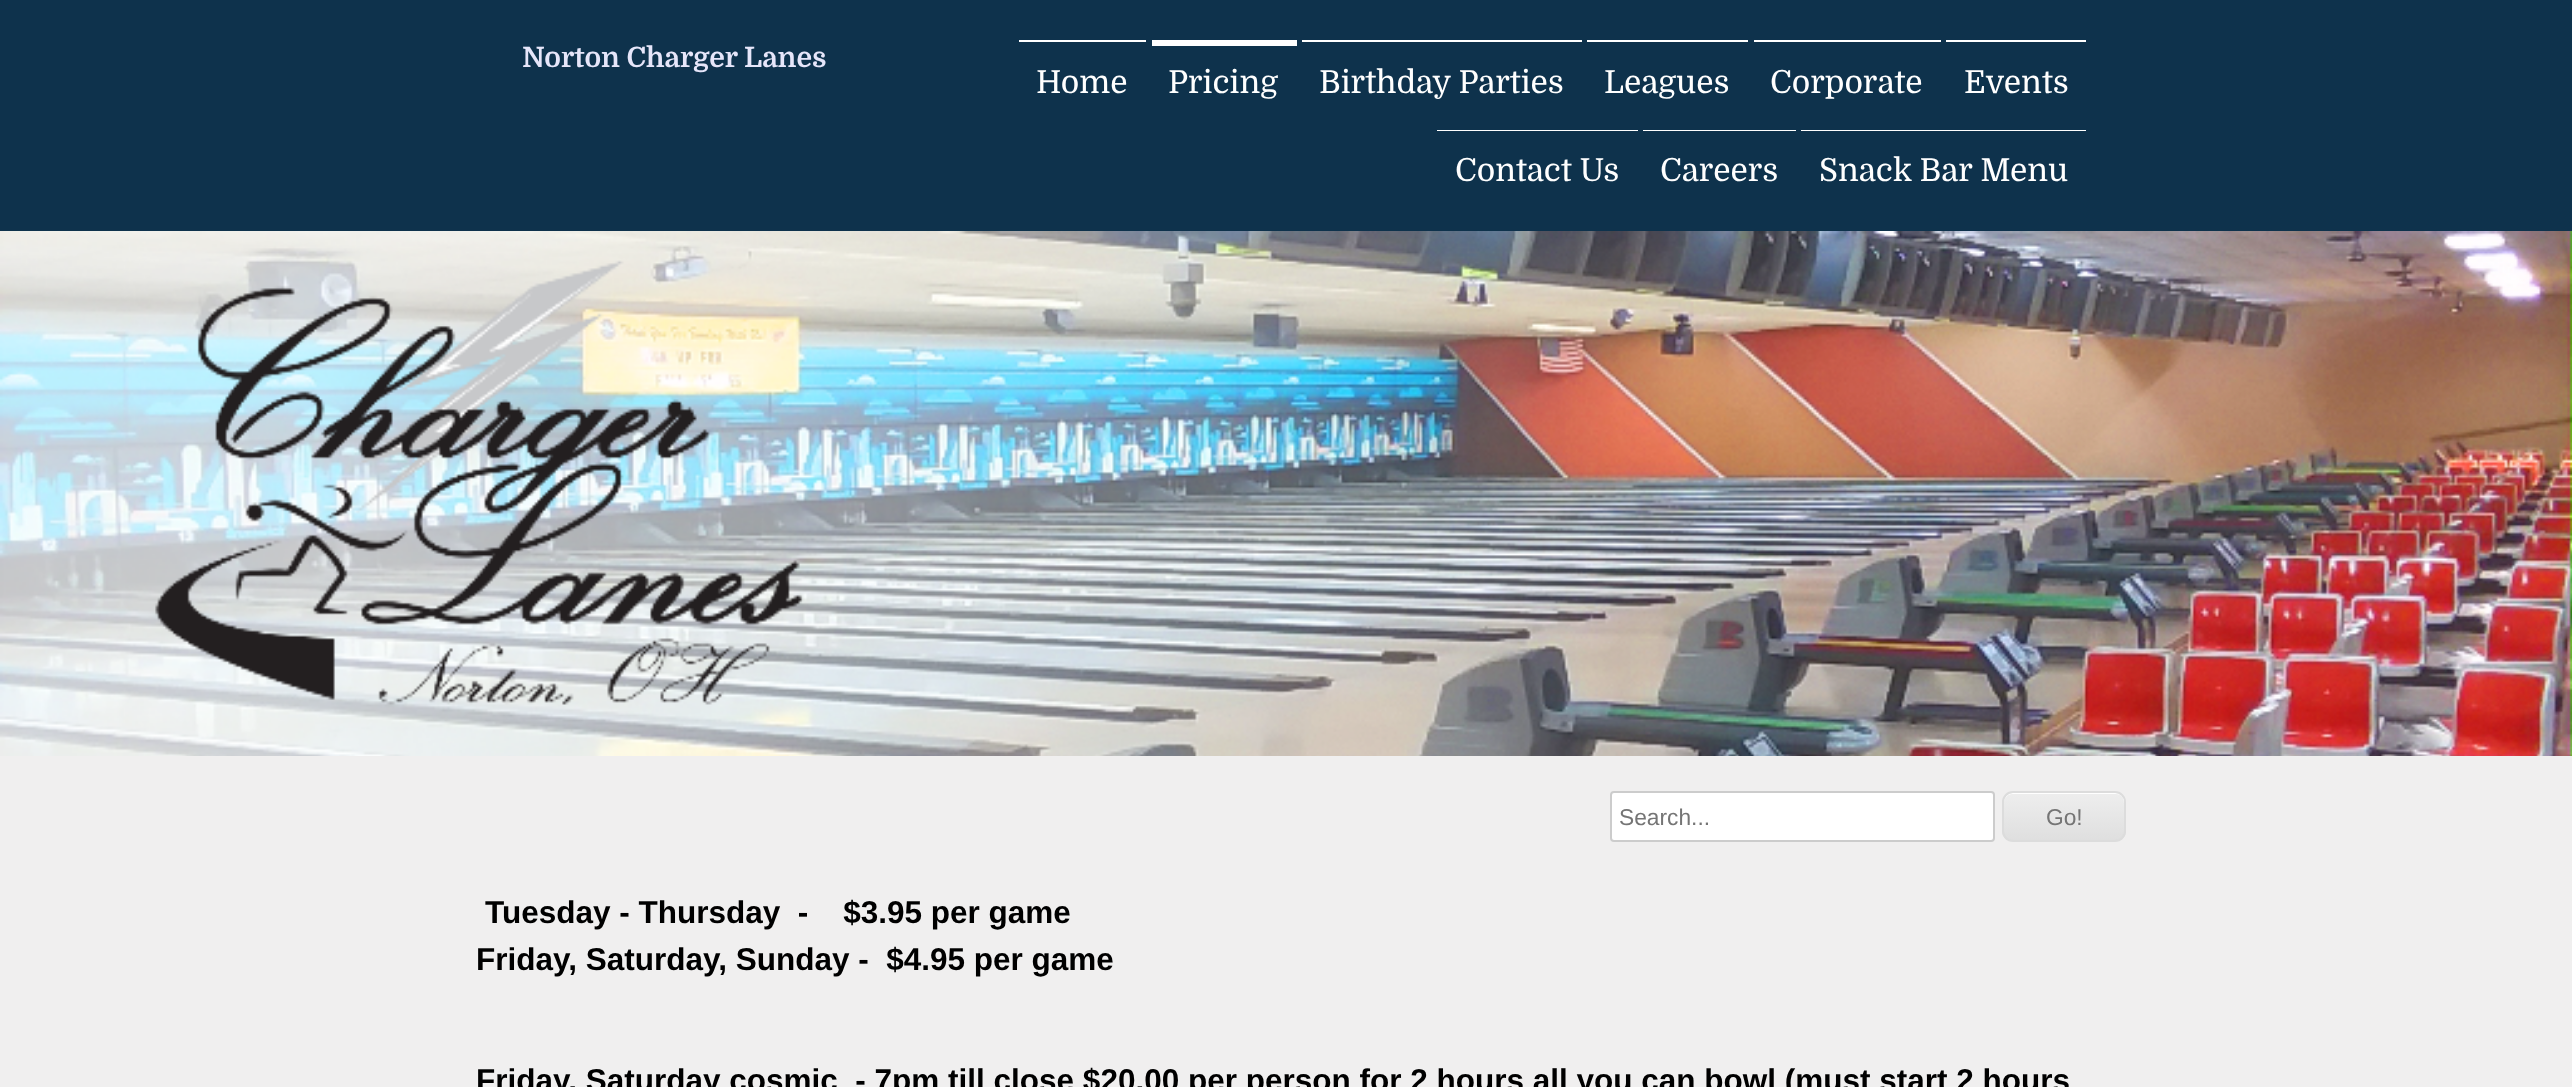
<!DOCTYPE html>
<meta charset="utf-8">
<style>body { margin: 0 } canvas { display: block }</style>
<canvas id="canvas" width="2572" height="1087"></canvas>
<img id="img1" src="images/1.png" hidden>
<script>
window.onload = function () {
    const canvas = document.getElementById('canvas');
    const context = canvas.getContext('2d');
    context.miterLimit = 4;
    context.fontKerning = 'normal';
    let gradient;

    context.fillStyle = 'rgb(240, 239, 239)';
    context.fillRect(0, 0, 2572, 1087);
    context.fillStyle = 'rgb(14, 50, 76)';
    context.fillRect(0, 0, 2572, 231);
    context.fillStyle = 'rgb(255, 255, 255)';
    context.fillRect(1019, 40, 127, 2);
    context.fillRect(1152, 40, 145, 6);
    context.fillRect(1302, 40, 280, 2);
    context.fillRect(1587, 40, 161, 2);
    context.fillRect(1754, 40, 187, 2);
    context.fillRect(1946, 40, 140, 2);
    context.fillRect(1437, 130, 201, 1);
    context.fillRect(1643, 130, 153, 1);
    context.fillRect(1801, 130, 285, 1);
    context.drawImage(document.getElementById('img1'), 0, 231, 2572, 525);
    context.beginPath();
    context.roundRect(1611, 792, 383, 49, 3);
    context.fill();
    context.strokeStyle = 'rgb(204, 204, 204)';
    context.lineWidth = 2;
    context.stroke();
    context.save();
    context.beginPath();
    context.roundRect(2002, 791, 124, 51, 11);
    context.clip();
    gradient = context.createLinearGradient(2004, 793, 2004, 840);
    gradient.addColorStop(0.05, 'rgb(237, 237, 237)');
    gradient.addColorStop(1, 'rgb(223, 223, 223)');
    context.fillStyle = gradient;
    context.fillRect(2002, 793, 124, 47);
    context.restore();
    context.beginPath();
    context.moveTo(2012, 794);
    context.lineTo(2116, 794);
    context.bezierCurveTo(2126, 794, 2124, 807, 2124, 813);
    context.lineTo(2124, 836);
    context.bezierCurveTo(2125, 834, 2125, 833, 2125, 831);
    context.lineTo(2125, 802);
    context.bezierCurveTo(2125, 797, 2121, 793, 2116, 793);
    context.lineTo(2013, 793);
    context.bezierCurveTo(2008, 793, 2004, 797, 2004, 802);
    context.lineTo(2004, 803);
    context.bezierCurveTo(2004, 798, 2008, 794, 2012, 794);
    context.closePath();
    context.fill();
    context.beginPath();
    context.roundRect(2003, 792, 122, 49, 10);
    context.strokeStyle = 'rgb(220, 220, 220)';
    context.stroke();
    context.font = 'bold 28px Domine';
    context.fillStyle = 'rgb(230, 230, 250)';
    context.fillText('Norton Charger Lanes', 522, 67);
    context.font = '31.75px Domine';
    context.fillStyle = 'rgb(255, 255, 255)';
    context.fillText('Home', 1036, 93);
    context.fillText('Pricing', 1168, 93);
    context.fillText('Birthday Parties', 1319, 93);
    context.fillText('Leagues', 1604, 93);
    context.fillText('Corporate', 1770, 93);
    context.fillText('Events', 1964, 93);
    context.fillText('Contact Us', 1455, 181);
    context.fillText('Careers', 1660, 181);
    context.fillText('Snack Bar Menu', 1819, 181);
    context.font = '22.75px Liberation Sans';
    context.fillStyle = 'rgb(117, 117, 117)';
    context.fillText('Search...', 1619, 825);
    context.fillText('Go!', 2046, 825);
    context.font = 'bold 31.5px Liberation Sans';
    context.fillStyle = 'rgb(0, 0, 0)';
    context.fillText('Tuesday - Thursday  -    $3.95 per game', 485, 923);
    context.fillText('Friday, Saturday, Sunday -  $4.95 per game', 476, 970);
    context.fillText('Friday, Saturday cosmic  - 7pm till close $20.00 per person for 2 hours all you can bowl (must start 2 hours', 476, 1091);
};
</script>
